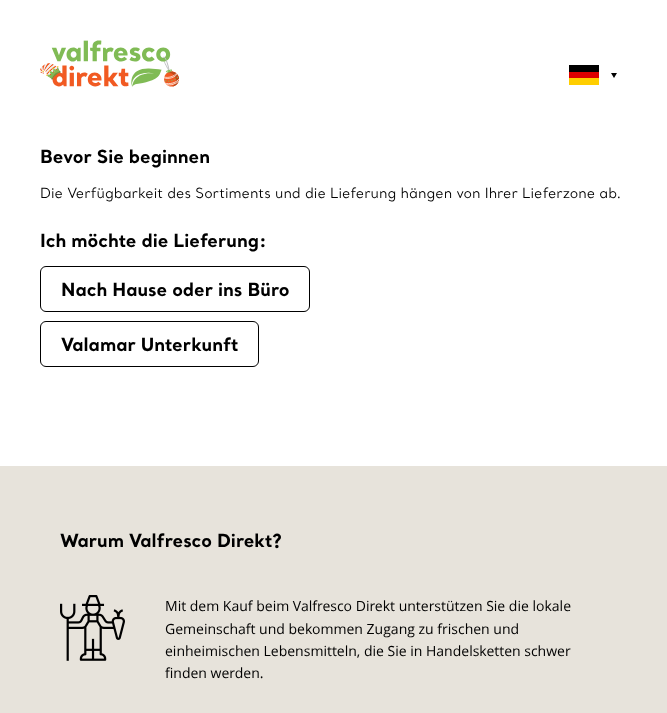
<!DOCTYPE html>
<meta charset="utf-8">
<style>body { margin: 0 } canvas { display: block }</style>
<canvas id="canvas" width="667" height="713"></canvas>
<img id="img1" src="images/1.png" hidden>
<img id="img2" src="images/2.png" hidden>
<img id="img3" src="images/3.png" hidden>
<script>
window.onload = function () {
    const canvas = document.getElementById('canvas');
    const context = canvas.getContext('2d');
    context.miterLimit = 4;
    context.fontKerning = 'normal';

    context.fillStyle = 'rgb(255, 255, 255)';
    context.fillRect(0, 0, 667, 713);
    context.drawImage(document.getElementById('img1'), 40, 40, 139, 47);
    context.beginPath();
    context.roundRect(40.5, 266.5, 269, 45, 5.5);
    context.strokeStyle = 'rgb(0, 0, 0)';
    context.stroke();
    context.beginPath();
    context.roundRect(40.5, 321.5, 218, 45, 5.5);
    context.stroke();
    context.fillStyle = 'rgb(231, 227, 219)';
    context.fillRect(0, 466, 667, 247);
    context.drawImage(document.getElementById('img2'), 569, 65, 30, 20);
    context.fillStyle = 'rgb(0, 0, 0)';
    context.beginPath();
    context.moveTo(611, 73);
    context.lineTo(617, 73);
    context.lineTo(614, 78);
    context.closePath();
    context.fill();
    context.drawImage(document.getElementById('img3'), 60, 595, 65, 66);
    context.font = 'bold 18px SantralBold';
    context.fillText('Bevor Sie beginnen', 40, 163);
    context.font = '14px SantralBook';
    context.fillText('Die Verfügbarkeit des Sortiments und die Lieferung hängen von Ihrer Lieferzone ab.', 40, 198);
    context.font = 'bold 18px SantralBold';
    context.fillText('Ich möchte die Lieferung:', 40, 247);
    context.fillText('Nach Hause oder ins Büro', 61, 296);
    context.fillText('Valamar Unterkunft', 61, 351);
    context.fillText('Warum Valfresco Direkt?', 60, 547);
    context.font = '14px Open Sans';
    context.fillText('Mit dem Kauf beim Valfresco Direkt unterstützen Sie die lokale', 165, 611);
    context.fillText('Gemeinschaft und bekommen Zugang zu frischen und', 165, 634);
    context.fillText('einheimischen Lebensmitteln, die Sie in Handelsketten schwer', 165, 656);
    context.fillText('finden werden.', 165, 678);
};
</script>
